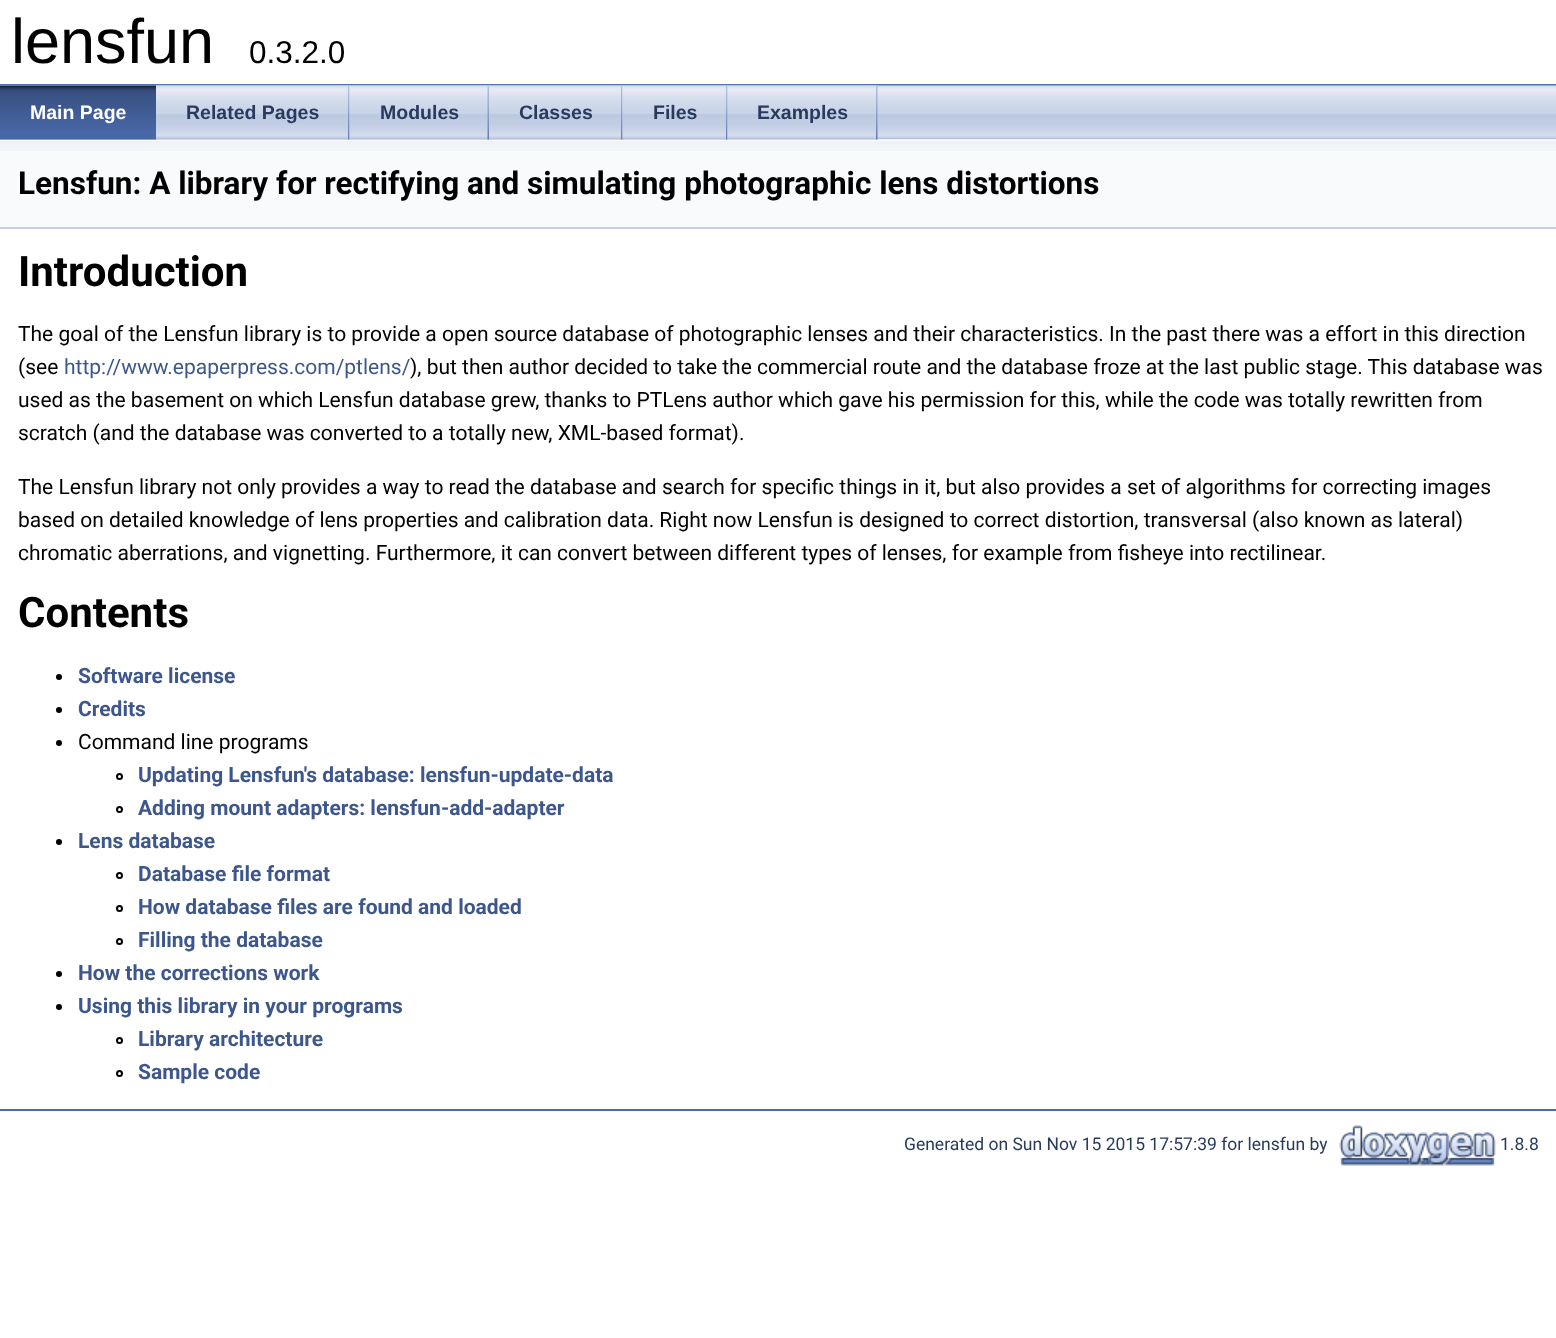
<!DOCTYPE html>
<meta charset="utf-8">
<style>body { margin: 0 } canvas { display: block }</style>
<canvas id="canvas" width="1556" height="1338"></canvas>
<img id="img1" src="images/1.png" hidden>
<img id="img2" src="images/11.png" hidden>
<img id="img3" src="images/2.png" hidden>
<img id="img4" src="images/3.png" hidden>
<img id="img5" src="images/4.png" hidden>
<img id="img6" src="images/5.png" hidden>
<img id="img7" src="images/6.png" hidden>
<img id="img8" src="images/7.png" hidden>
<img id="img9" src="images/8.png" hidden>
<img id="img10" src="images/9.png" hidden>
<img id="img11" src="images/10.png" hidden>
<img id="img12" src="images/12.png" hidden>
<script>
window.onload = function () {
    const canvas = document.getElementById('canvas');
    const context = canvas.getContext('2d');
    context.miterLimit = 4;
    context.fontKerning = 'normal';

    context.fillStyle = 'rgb(255, 255, 255)';
    context.fillRect(0, 0, 1556, 1338);
    context.fillStyle = 'rgb(83, 115, 180)';
    context.fillRect(0, 84, 1556, 2);
    context.drawImage(document.getElementById('img1'), 0, 85, 1556, 55);
    context.drawImage(document.getElementById('img2'), 0, 139, 1556, 12);
    context.drawImage(document.getElementById('img3'), 0, 85, 156, 55);
    context.drawImage(document.getElementById('img4'), 0, 85, 156, 55);
    context.drawImage(document.getElementById('img5'), 156, 85, 194, 55);
    context.drawImage(document.getElementById('img6'), 348, 86, 2, 54);
    context.drawImage(document.getElementById('img7'), 349, 85, 140, 55);
    context.drawImage(document.getElementById('img8'), 487, 86, 2, 54);
    context.drawImage(document.getElementById('img9'), 489, 85, 134, 55);
    context.drawImage(document.getElementById('img6'), 621, 86, 2, 54);
    context.drawImage(document.getElementById('img10'), 622, 85, 106, 55);
    context.drawImage(document.getElementById('img6'), 726, 86, 2, 54);
    context.drawImage(document.getElementById('img11'), 727, 85, 151, 55);
    context.drawImage(document.getElementById('img6'), 876, 86, 2, 54);
    context.fillStyle = 'rgb(249, 250, 252)';
    context.fillRect(0, 151, 1556, 76);
    context.fillStyle = 'rgb(196, 207, 229)';
    context.fillRect(0, 227, 1556, 2);
    context.fillStyle = 'rgb(0, 0, 0)';
    context.beginPath();
    context.arc(59, 677, 3, 0, 2 * Math.PI);
    context.fill();
    context.beginPath();
    context.arc(59, 710, 3, 0, 2 * Math.PI);
    context.fill();
    context.beginPath();
    context.arc(59, 743, 3, 0, 2 * Math.PI);
    context.fill();
    context.beginPath();
    context.arc(119.5, 776.5, 2.5, 0, 2 * Math.PI);
    context.strokeStyle = 'rgb(0, 0, 0)';
    context.lineWidth = 2;
    context.stroke();
    context.beginPath();
    context.arc(119.5, 809.5, 2.5, 0, 2 * Math.PI);
    context.stroke();
    context.beginPath();
    context.arc(59, 842, 3, 0, 2 * Math.PI);
    context.fill();
    context.beginPath();
    context.arc(119.5, 875.5, 2.5, 0, 2 * Math.PI);
    context.stroke();
    context.beginPath();
    context.arc(119.5, 908.5, 2.5, 0, 2 * Math.PI);
    context.stroke();
    context.beginPath();
    context.arc(119.5, 941.5, 2.5, 0, 2 * Math.PI);
    context.stroke();
    context.beginPath();
    context.arc(59, 974, 3, 0, 2 * Math.PI);
    context.fill();
    context.beginPath();
    context.arc(59, 1007, 3, 0, 2 * Math.PI);
    context.fill();
    context.beginPath();
    context.arc(119.5, 1040.5, 2.5, 0, 2 * Math.PI);
    context.stroke();
    context.beginPath();
    context.arc(119.5, 1073.5, 2.5, 0, 2 * Math.PI);
    context.stroke();
    context.fillStyle = 'rgb(74, 106, 170)';
    context.fillRect(0, 1109, 1556, 2);
    context.drawImage(document.getElementById('img12'), 1339, 1124, 157, 42);
    context.font = '63px Liberation Sans';
    context.fillStyle = 'rgb(0, 0, 0)';
    context.fillText('lensfun', 11, 63);
    context.font = '31.5px Liberation Sans';
    context.fillText('0.3.2.0', 249, 63);
    context.font = 'bold 19.5px Liberation Sans';
    context.fillStyle = 'rgb(255, 255, 255)';
    context.fillText('Main Page', 30, 119);
    context.fillStyle = 'rgb(40, 58, 93)';
    context.fillText('Related Pages', 186, 119);
    context.fillText('Modules', 380, 119);
    context.fillText('Classes', 519, 119);
    context.fillText('Files', 653, 119);
    context.fillText('Examples', 757, 119);
    context.font = 'bold 31.5px Roboto';
    context.fillStyle = 'rgb(0, 0, 0)';
    context.fillText('Lensfun: A library for rectifying and simulating photographic lens distortions', 18, 194);
    context.font = 'bold 42px Roboto';
    context.fillText('Introduction', 18, 286);
    context.font = '21px Roboto';
    context.fillText('The goal of the Lensfun library is to provide a open source database of photographic lenses and their characteristics. In the past there was a effort in this direction', 18, 341);
    context.fillText('(see', 18, 374);
    context.fillStyle = 'rgb(61, 87, 140)';
    context.fillText('http://www.epaperpress.com/ptlens/', 64, 374);
    context.fillStyle = 'rgb(0, 0, 0)';
    context.fillText('), but then author decided to take the commercial route and the database froze at the last public stage. This database was', 410, 374);
    context.fillText('used as the basement on which Lensfun database grew, thanks to PTLens author which gave his permission for this, while the code was totally rewritten from', 18, 407);
    context.fillText('scratch (and the database was converted to a totally new, XML-based format).', 18, 440);
    context.fillText('The Lensfun library not only provides a way to read the database and search for specific things in it, but also provides a set of algorithms for correcting images', 18, 494);
    context.fillText('based on detailed knowledge of lens properties and calibration data. Right now Lensfun is designed to correct distortion, transversal (also known as lateral)', 18, 527);
    context.fillText('chromatic aberrations, and vignetting. Furthermore, it can convert between different types of lenses, for example from fisheye into rectilinear.', 18, 560);
    context.font = 'bold 42px Roboto';
    context.fillText('Contents', 18, 627);
    context.font = 'bold 21px Roboto';
    context.fillStyle = 'rgb(61, 87, 140)';
    context.fillText('Software license', 78, 683);
    context.fillText('Credits', 78, 716);
    context.font = '21px Roboto';
    context.fillStyle = 'rgb(0, 0, 0)';
    context.fillText('Command line programs', 78, 749);
    context.font = 'bold 21px Roboto';
    context.fillStyle = 'rgb(61, 87, 140)';
    context.fillText('Updating Lensfun\'s database: lensfun‑update-data', 138, 782);
    context.fillText('Adding mount adapters: lensfun‑add‑adapter', 138, 815);
    context.fillText('Lens database', 78, 848);
    context.fillText('Database file format', 138, 881);
    context.fillText('How database files are found and loaded', 138, 914);
    context.fillText('Filling the database', 138, 947);
    context.fillText('How the corrections work', 78, 980);
    context.fillText('Using this library in your programs', 78, 1013);
    context.fillText('Library architecture', 138, 1046);
    context.fillText('Sample code', 138, 1079);
    context.font = '17.5px Roboto';
    context.fillStyle = 'rgb(40, 58, 93)';
    context.fillText('Generated on Sun Nov 15 2015 17:57:39 for lensfun by', 904, 1150);
    context.fillText('1.8.8', 1500, 1150);
};
</script>
